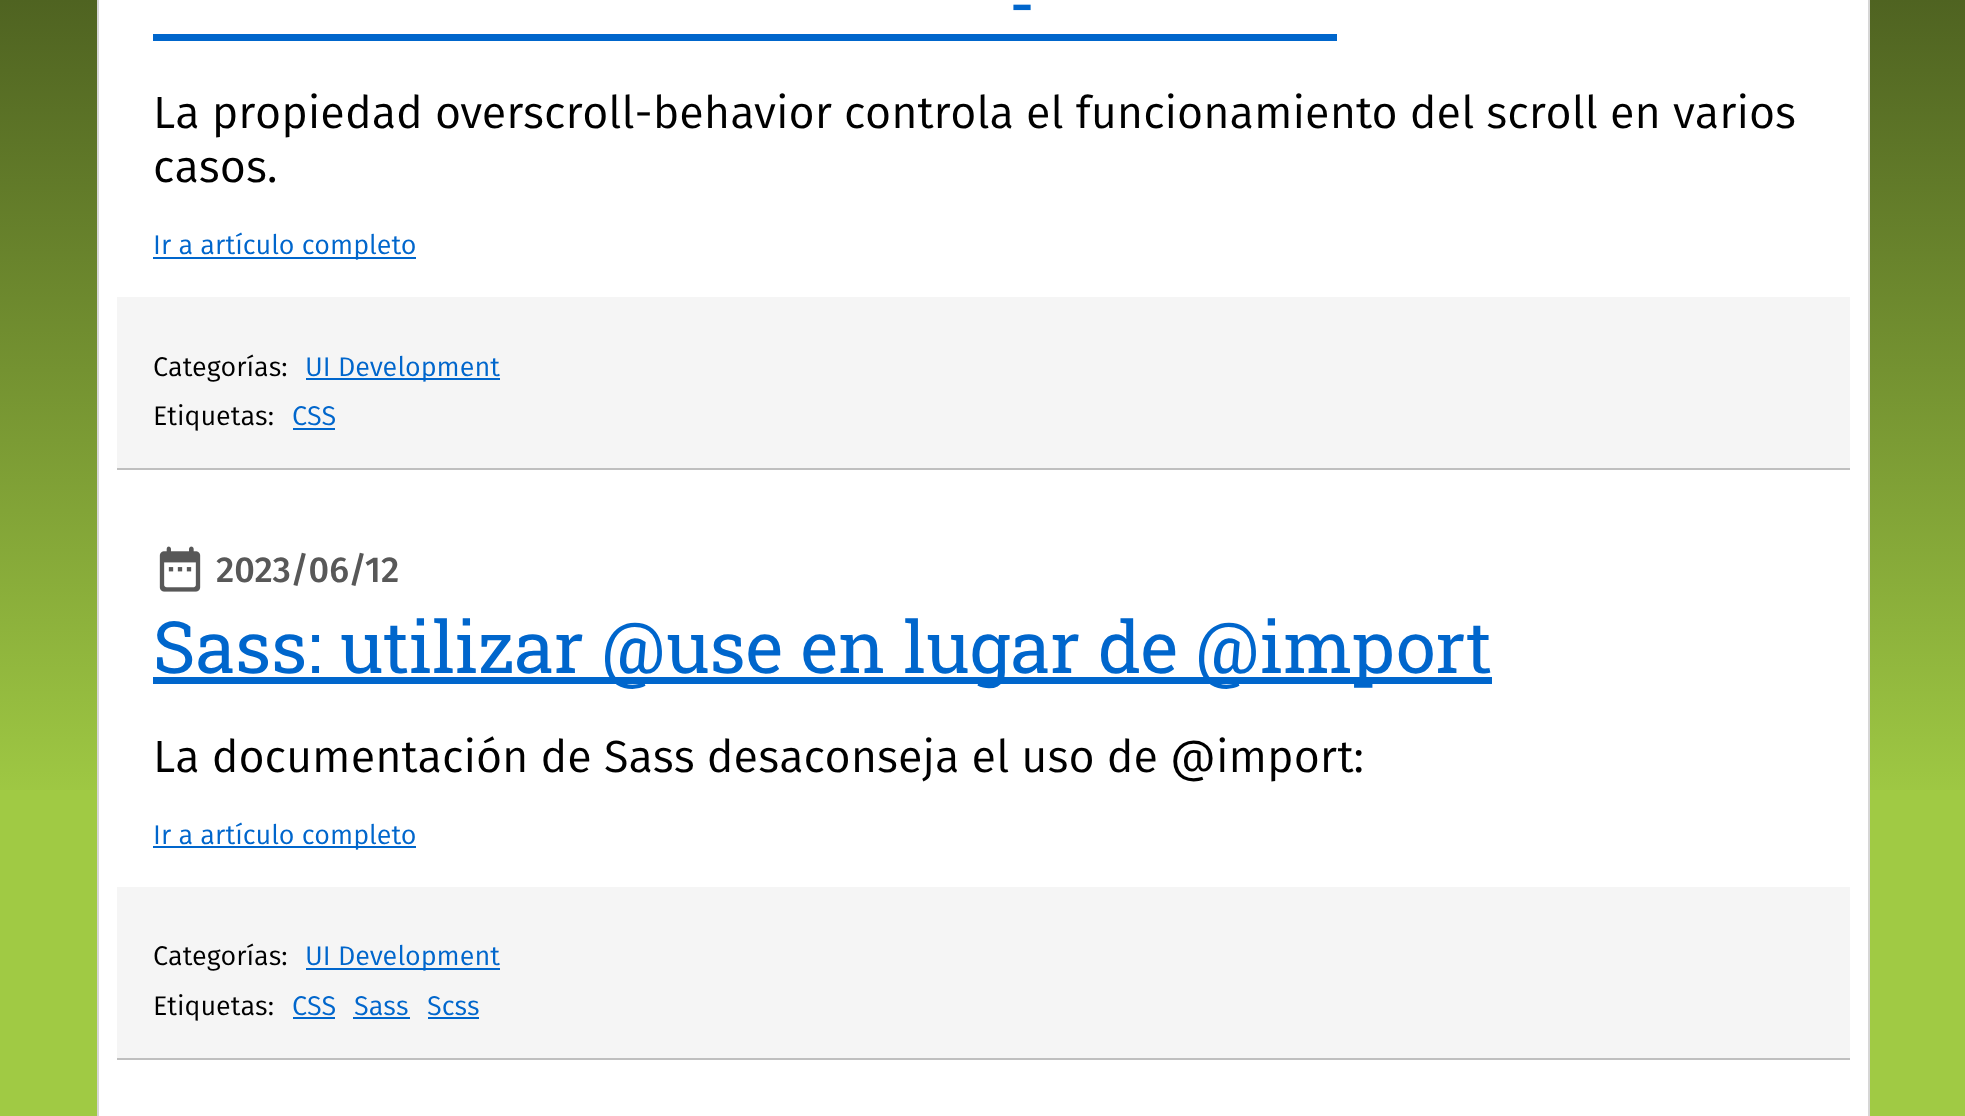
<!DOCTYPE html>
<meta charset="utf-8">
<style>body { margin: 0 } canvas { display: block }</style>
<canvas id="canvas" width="1965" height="1116"></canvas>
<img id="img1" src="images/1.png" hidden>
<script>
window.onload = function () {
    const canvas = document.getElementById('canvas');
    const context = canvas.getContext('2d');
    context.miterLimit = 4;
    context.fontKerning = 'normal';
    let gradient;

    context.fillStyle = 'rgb(160, 202, 68)';
    context.fillRect(0, 0, 1965, 1116);
    gradient = context.createLinearGradient(983, 0, 983, 810);
    gradient.addColorStop(0, 'rgb(79, 99, 33)');
    gradient.addColorStop(1, 'rgb(160, 202, 68)');
    context.fillStyle = gradient;
    context.fillRect(0, 0, 1965, 790);
    context.fillStyle = 'rgb(255, 255, 255)';
    context.beginPath();
    context.rect(98, -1, 1771, 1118);
    context.fill();
    context.strokeStyle = 'rgb(214, 214, 214)';
    context.lineWidth = 2;
    context.stroke();
    context.fillStyle = 'rgb(191, 191, 191)';
    context.fillRect(117, 468, 1733, 2);
    context.fillStyle = 'rgb(0, 102, 204)';
    context.fillRect(153, 34, 1184, 7);
    context.fillRect(153, 257, 263, 2);
    context.fillStyle = 'rgb(245, 245, 245)';
    context.fillRect(117, 297, 1733, 171);
    context.fillStyle = 'rgb(0, 102, 204)';
    context.fillRect(306, 378, 194, 2);
    context.fillRect(293, 428, 42, 2);
    context.fillStyle = 'rgb(191, 191, 191)';
    context.fillRect(117, 1058, 1733, 2);
    context.drawImage(document.getElementById('img1'), 159, 546, 42, 46);
    context.fillStyle = 'rgb(0, 102, 204)';
    context.fillRect(153, 677, 1339, 7);
    context.fillRect(153, 846, 263, 2);
    context.fillStyle = 'rgb(245, 245, 245)';
    context.fillRect(117, 887, 1733, 171);
    context.fillStyle = 'rgb(0, 102, 204)';
    context.fillRect(306, 968, 194, 2);
    context.fillRect(293, 1017, 42, 2);
    context.fillRect(353, 1017, 57, 2);
    context.fillRect(428, 1017, 51, 2);
    context.font = '72px Roboto Slab';
    context.fillText('-', 1008, 29);
    context.font = '45px Fira Sans';
    context.fillStyle = 'rgb(0, 0, 0)';
    context.fillText('La propiedad overscroll-behavior controla el funcionamiento del scroll en varios', 153, 128);
    context.fillText('casos.', 153, 182);
    context.font = '27px Fira Sans';
    context.fillStyle = 'rgb(0, 102, 204)';
    context.fillText('Ir a artículo completo', 153, 254);
    context.fillStyle = 'rgb(0, 0, 0)';
    context.fillText('Categorías:', 153, 376);
    context.fillStyle = 'rgb(0, 102, 204)';
    context.fillText('UI Development', 305, 376);
    context.fillStyle = 'rgb(0, 0, 0)';
    context.fillText('Etiquetas:', 153, 425);
    context.fillStyle = 'rgb(0, 102, 204)';
    context.fillText('CSS', 292, 425);
    context.font = '500 36px Fira Sans';
    context.fillStyle = 'rgb(88, 88, 88)';
    context.fillText('2023/06/12', 216, 582);
    context.font = '72px Roboto Slab';
    context.fillStyle = 'rgb(0, 102, 204)';
    context.fillText('Sass: utilizar @use en lugar de @import', 153, 673);
    context.font = '45px Fira Sans';
    context.fillStyle = 'rgb(0, 0, 0)';
    context.fillText('La documentación de Sass desaconseja el uso de @import:', 153, 772);
    context.font = '27px Fira Sans';
    context.fillStyle = 'rgb(0, 102, 204)';
    context.fillText('Ir a artículo completo', 153, 844);
    context.fillStyle = 'rgb(0, 0, 0)';
    context.fillText('Categorías:', 153, 965);
    context.fillStyle = 'rgb(0, 102, 204)';
    context.fillText('UI Development', 305, 965);
    context.fillStyle = 'rgb(0, 0, 0)';
    context.fillText('Etiquetas:', 153, 1015);
    context.fillStyle = 'rgb(0, 102, 204)';
    context.fillText('CSS', 292, 1015);
    context.fillText('Sass', 354, 1015);
    context.fillText('Scss', 427, 1015);
};
</script>
